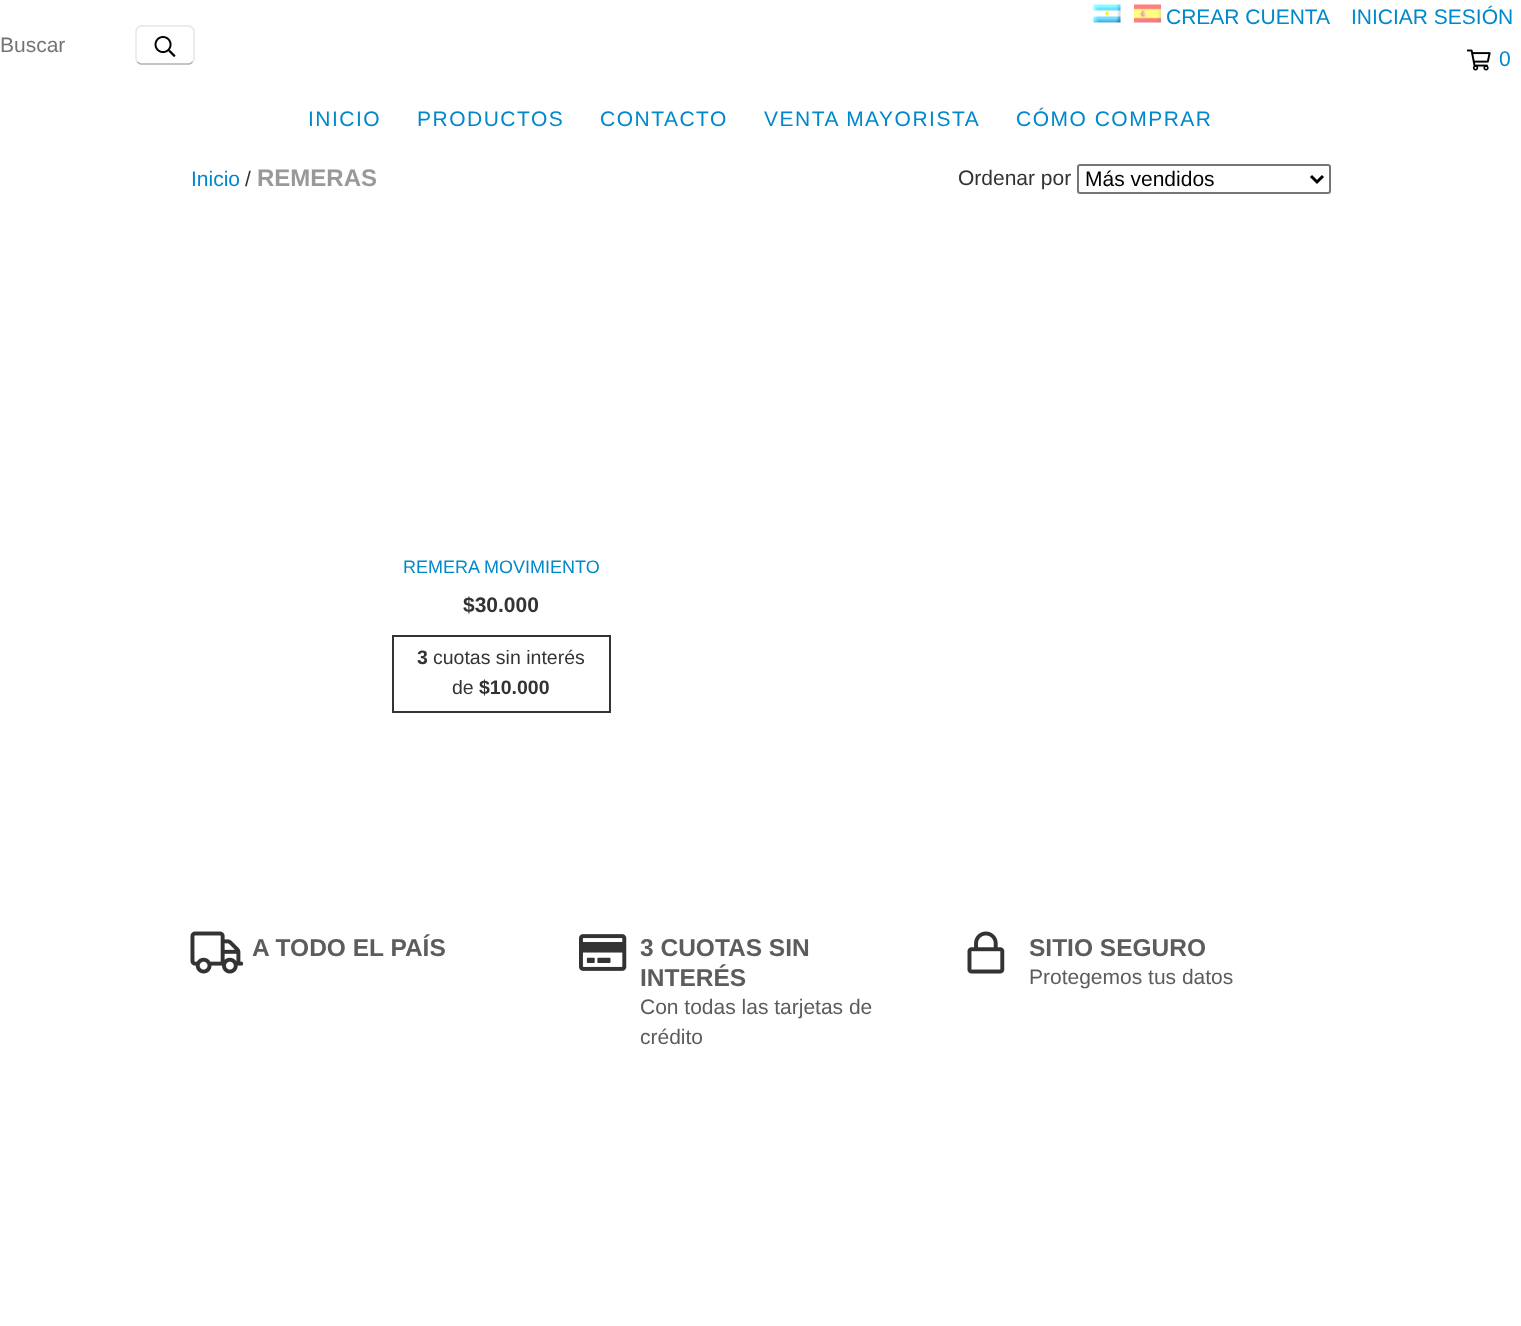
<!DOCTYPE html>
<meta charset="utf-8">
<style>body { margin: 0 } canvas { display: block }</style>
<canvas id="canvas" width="1521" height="1326"></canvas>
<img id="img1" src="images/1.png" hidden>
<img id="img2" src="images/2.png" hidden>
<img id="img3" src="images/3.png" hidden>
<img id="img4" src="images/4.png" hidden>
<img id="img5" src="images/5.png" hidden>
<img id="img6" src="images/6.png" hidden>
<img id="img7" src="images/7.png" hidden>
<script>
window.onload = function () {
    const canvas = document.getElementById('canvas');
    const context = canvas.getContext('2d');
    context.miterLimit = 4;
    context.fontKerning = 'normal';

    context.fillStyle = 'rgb(255, 255, 255)';
    context.fillRect(0, 0, 1521, 1326);
    context.beginPath();
    context.moveTo(192.5, 62);
    context.bezierCurveTo(191.5, 63, 190.5, 64, 189, 64);
    context.lineTo(141, 64);
    context.bezierCurveTo(139.5, 64, 138.5, 63, 137.5, 62);
    context.strokeStyle = 'rgb(179, 179, 179)';
    context.lineWidth = 1.5;
    context.stroke();
    context.beginPath();
    context.moveTo(137.5, 62);
    context.bezierCurveTo(136.5, 61, 136, 60, 136, 58.5);
    context.lineTo(136, 31.5);
    context.bezierCurveTo(136, 30, 136.5, 29, 137.5, 28);
    context.bezierCurveTo(138.5, 27, 139.5, 26, 141, 26);
    context.lineTo(189, 26);
    context.bezierCurveTo(190.5, 26, 191.5, 27, 192.5, 28);
    context.bezierCurveTo(193.5, 29, 194, 30, 194, 31.5);
    context.lineTo(194, 58.5);
    context.bezierCurveTo(194, 60, 193.5, 61, 192.5, 62);
    context.strokeStyle = 'rgba(0, 0, 0, 0.1)';
    context.stroke();
    context.drawImage(document.getElementById('img1'), 154, 36, 22, 21);
    context.drawImage(document.getElementById('img2'), 1093, 4, 28, 19);
    context.drawImage(document.getElementById('img3'), 1134, 4, 27, 19);
    context.drawImage(document.getElementById('img4'), 1467, 49, 24, 22);
    context.beginPath();
    context.roundRect(1078, 165, 252, 28, 2);
    context.strokeStyle = 'rgb(118, 118, 118)';
    context.lineWidth = 2;
    context.stroke();
    context.beginPath();
    context.moveTo(1311, 176);
    context.lineTo(1317, 182);
    context.lineTo(1323, 176);
    context.strokeStyle = 'rgb(0, 0, 0)';
    context.lineWidth = 3;
    context.stroke();
    context.strokeStyle = 'rgb(51, 51, 51)';
    context.lineWidth = 2;
    context.strokeRect(393, 636, 217, 76);
    context.drawImage(document.getElementById('img5'), 190, 931, 53, 43);
    context.drawImage(document.getElementById('img6'), 579, 934, 48, 37);
    context.drawImage(document.getElementById('img7'), 967, 931, 38, 43);
    context.font = '21px Liberation Sans';
    context.fillStyle = 'rgb(117, 117, 117)';
    context.fillText('Buscar', 0, 52);
    context.fillStyle = 'rgb(0, 136, 204)';
    context.fillText('CREAR CUENTA', 1166, 24);
    context.fillText('INICIAR SESIÓN', 1351, 24);
    context.letterSpacing = '1.5px';
    context.fillText('0', 1499, 66);
    context.fillText('INICIO', 308, 126);
    context.fillText('PRODUCTOS', 417, 126);
    context.fillText('CONTACTO', 600, 126);
    context.fillText('VENTA MAYORISTA', 764, 126);
    context.fillText('CÓMO COMPRAR', 1016, 126);
    context.letterSpacing = '0px';
    context.fillText('Inicio', 191, 186);
    context.fillStyle = 'rgb(51, 51, 51)';
    context.fillText('/', 245, 186);
    context.font = 'bold 24px Liberation Sans';
    context.fillStyle = 'rgb(153, 153, 153)';
    context.fillText('REMERAS', 257, 186);
    context.font = '21px Liberation Sans';
    context.fillStyle = 'rgb(51, 51, 51)';
    context.fillText('Ordenar por', 958, 185);
    context.fillStyle = 'rgb(0, 0, 0)';
    context.fillText('Más vendidos', 1085, 186);
    context.font = '18px Liberation Sans';
    context.fillStyle = 'rgb(0, 136, 204)';
    context.fillText('REMERA MOVIMIENTO', 403, 573);
    context.font = 'bold 21px Liberation Sans';
    context.fillStyle = 'rgb(51, 51, 51)';
    context.fillText('$30.000', 463, 612);
    context.font = 'bold 19.5px Liberation Sans';
    context.fillText('3', 417, 664);
    context.font = '19.5px Liberation Sans';
    context.fillText('cuotas sin interés', 433, 664);
    context.fillText('de', 452, 694);
    context.font = 'bold 19.5px Liberation Sans';
    context.fillText('$10.000', 479, 694);
    context.font = 'bold 24.5px Liberation Sans';
    context.fillStyle = 'rgb(92, 92, 92)';
    context.fillText('A TODO EL PAÍS', 252, 956);
    context.fillText('3 CUOTAS SIN', 640, 956);
    context.fillText('INTERÉS', 640, 986);
    context.font = '21px Liberation Sans';
    context.fillText('Con todas las tarjetas de', 640, 1014);
    context.fillText('crédito', 640, 1044);
    context.font = 'bold 24.5px Liberation Sans';
    context.fillText('SITIO SEGURO', 1029, 956);
    context.font = '21px Liberation Sans';
    context.fillText('Protegemos tus datos', 1029, 984);
};
</script>
